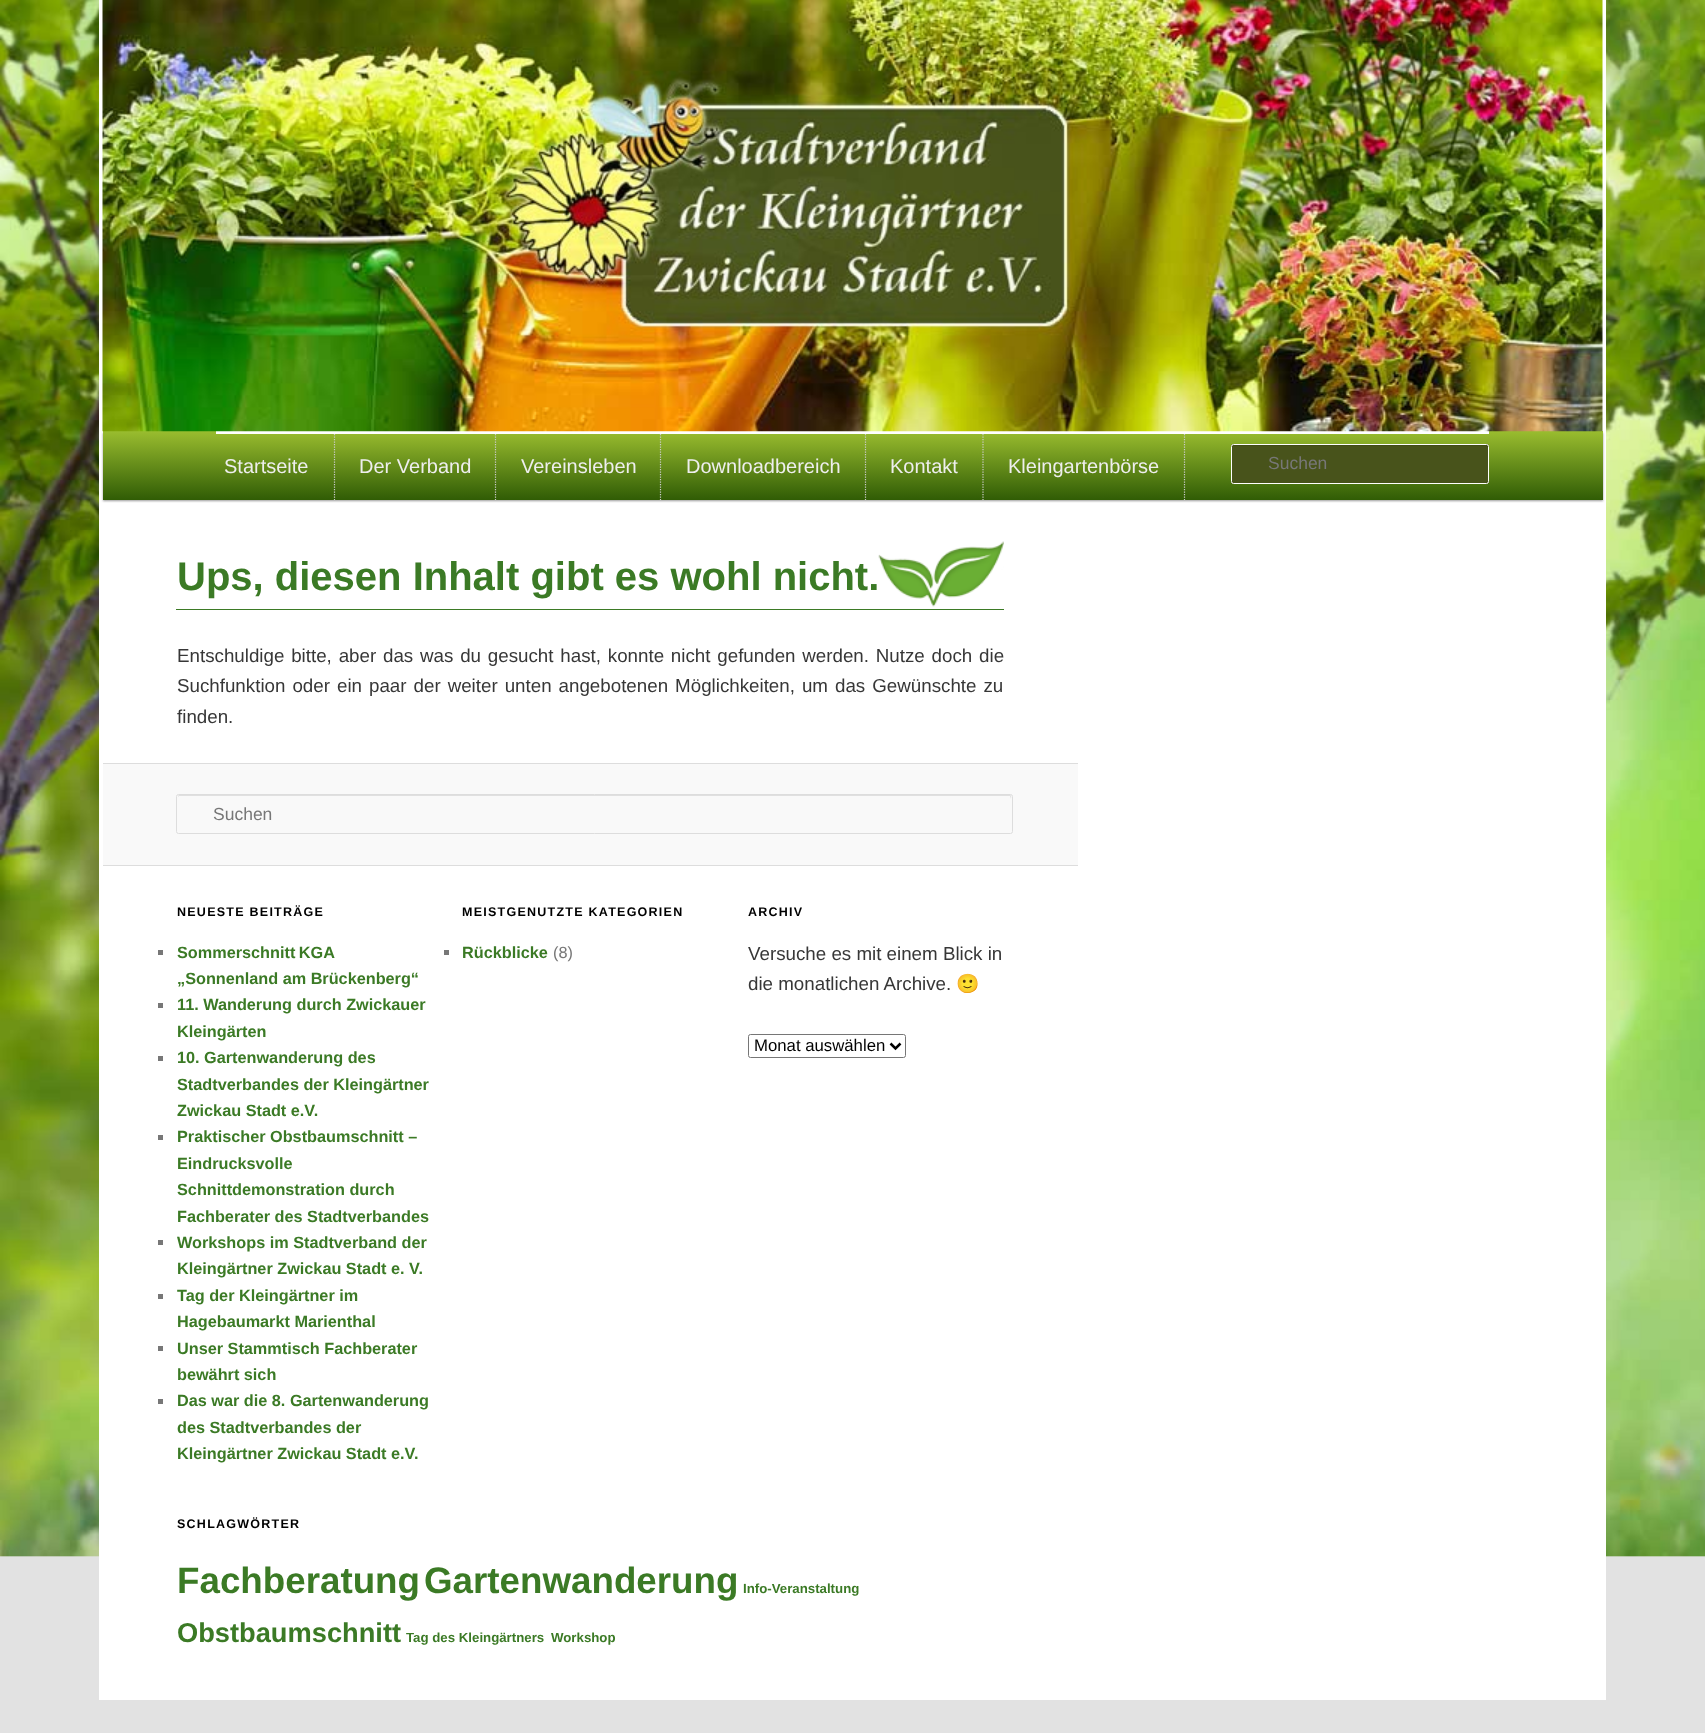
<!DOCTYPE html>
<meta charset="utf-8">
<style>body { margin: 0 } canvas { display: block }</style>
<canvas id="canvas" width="1705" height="1733"></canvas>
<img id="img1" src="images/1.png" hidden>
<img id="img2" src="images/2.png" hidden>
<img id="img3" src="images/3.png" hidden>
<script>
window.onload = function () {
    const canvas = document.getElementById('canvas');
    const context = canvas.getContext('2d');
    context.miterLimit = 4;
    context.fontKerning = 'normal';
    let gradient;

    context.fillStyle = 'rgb(226, 226, 226)';
    context.fillRect(0, 0, 1705, 1733);
    context.drawImage(document.getElementById('img1'), 0, 0, 1705, 1557);
    context.fillStyle = 'rgb(255, 255, 255)';
    context.fillRect(99, 0, 1507, 1700);
    context.fillStyle = 'rgba(0, 0, 0, 0.4)';
    context.filter = 'blur(1px)';
    context.beginPath();
    context.rect(103, 433, 1500, 68);
    context.fill();
    context.filter = 'none';
    gradient = context.createLinearGradient(853, 431, 853, 500);
    gradient.addColorStop(0, 'rgb(154, 189, 47)');
    gradient.addColorStop(1, 'rgb(48, 92, 5)');
    context.fillStyle = gradient;
    context.fillRect(103, 431, 1500, 69);
    context.fillStyle = 'rgb(255, 255, 255)';
    context.fillRect(216, 431, 1273, 3);
    context.drawImage(document.getElementById('img2'), 102, 0, 1501, 432);
    context.beginPath();
    context.moveTo(334.5, 434);
    context.lineTo(334.5, 500);
    context.strokeStyle = 'rgb(204, 204, 204)';
    context.lineWidth = 1.2;
    context.setLineDash([1.25, 1.25]);
    context.stroke();
    context.beginPath();
    context.moveTo(495.5, 434);
    context.lineTo(495.5, 500);
    context.stroke();
    context.beginPath();
    context.moveTo(660.5, 434);
    context.lineTo(660.5, 500);
    context.stroke();
    context.beginPath();
    context.moveTo(865.5, 434);
    context.lineTo(865.5, 500);
    context.stroke();
    context.beginPath();
    context.moveTo(983, 434);
    context.lineTo(983, 500);
    context.stroke();
    context.beginPath();
    context.moveTo(1184.5, 434);
    context.lineTo(1184.5, 500);
    context.stroke();
    context.fillStyle = 'rgb(72, 83, 27)';
    context.beginPath();
    context.roundRect(1231, 444, 258, 40, 2.5);
    context.fill();
    context.fillStyle = 'rgb(65, 75, 24)';
    context.beginPath();
    context.moveTo(1234, 446);
    context.lineTo(1486, 446);
    context.bezierCurveTo(1487, 446, 1488, 447, 1488, 448);
    context.bezierCurveTo(1488, 447, 1488, 445, 1487, 445);
    context.lineTo(1234, 445);
    context.lineTo(1233, 446);
    context.closePath();
    context.fill();
    context.beginPath();
    context.roundRect(1231.5, 444.5, 257, 39, 2);
    context.strokeStyle = 'rgb(255, 255, 255)';
    context.lineWidth = 1;
    context.setLineDash([]);
    context.stroke();
    context.drawImage(document.getElementById('img3'), 878, 541, 126, 66);
    context.fillStyle = 'rgb(59, 122, 37)';
    context.fillRect(176, 609, 828, 1);
    context.fillStyle = 'rgb(249, 249, 249)';
    context.fillRect(103, 764, 975, 101);
    context.fillStyle = 'rgb(221, 221, 221)';
    context.fillRect(103, 763, 975, 1);
    context.fillRect(103, 865, 975, 1);
    context.fillStyle = 'rgb(224, 224, 224)';
    context.beginPath();
    context.moveTo(179, 796);
    context.lineTo(1010, 796);
    context.lineTo(1011, 799);
    context.bezierCurveTo(1011, 798, 1012, 795, 1010, 795);
    context.lineTo(179, 795);
    context.bezierCurveTo(178, 795, 178, 796, 178, 797);
    context.closePath();
    context.fill();
    context.beginPath();
    context.roundRect(176.5, 794.5, 836, 39, 2);
    context.strokeStyle = 'rgb(221, 221, 221)';
    context.stroke();
    context.fillStyle = 'rgb(119, 119, 119)';
    context.fillRect(158, 950, 5, 5);
    context.fillRect(158, 1003, 5, 5);
    context.fillRect(158, 1056, 5, 5);
    context.fillRect(158, 1135, 5, 5);
    context.fillRect(158, 1240, 5, 5);
    context.fillRect(158, 1294, 5, 5);
    context.fillRect(158, 1346, 5, 5);
    context.fillRect(158, 1399, 5, 5);
    context.fillRect(444, 950, 5, 5);
    context.beginPath();
    context.roundRect(748.5, 1034.5, 157, 23, 2);
    context.strokeStyle = 'rgb(118, 118, 118)';
    context.stroke();
    context.beginPath();
    context.moveTo(890.5, 1043.5);
    context.lineTo(895.5, 1048.5);
    context.lineTo(900.5, 1043.5);
    context.strokeStyle = 'rgb(0, 0, 0)';
    context.lineWidth = 2.5;
    context.stroke();
    context.font = '20px Liberation Sans';
    context.fillStyle = 'rgb(238, 238, 238)';
    context.fillText('Startseite', 224, 473);
    context.fillText('Der Verband', 359, 473);
    context.fillText('Vereinsleben', 521, 473);
    context.fillText('Downloadbereich', 686, 473);
    context.fillText('Kontakt', 890, 473);
    context.fillText('Kleingartenbörse', 1008, 473);
    context.font = '17.5px Liberation Sans';
    context.fillStyle = 'rgb(119, 119, 119)';
    context.fillText('Suchen', 1268, 469);
    context.font = 'bold 40px Liberation Sans';
    context.fillStyle = 'rgb(59, 122, 37)';
    context.fillText('Ups, diesen Inhalt gibt es wohl nicht.', 177, 590);
    context.wordSpacing = '1.6px';
    context.font = '18.75px Liberation Sans';
    context.fillStyle = 'rgb(55, 55, 55)';
    context.fillText('Entschuldige bitte, aber das was du gesucht hast, konnte nicht gefunden werden. Nutze doch die', 177, 662);
    context.wordSpacing = '1.8px';
    context.fillText('Suchfunktion oder ein paar der weiter unten angebotenen Möglichkeiten, um das Gewünschte zu', 177, 692);
    context.wordSpacing = '0px';
    context.fillText('finden.', 177, 723);
    context.font = '17.5px Liberation Sans';
    context.fillStyle = 'rgb(119, 119, 119)';
    context.fillText('Suchen', 213, 820);
    context.letterSpacing = '1.25px';
    context.font = 'bold 12.5px Liberation Sans';
    context.fillStyle = 'rgb(0, 0, 0)';
    context.fillText('NEUESTE BEITRÄGE', 177, 916);
    context.letterSpacing = '0px';
    context.wordSpacing = '-1px';
    context.font = 'bold 16.25px Liberation Sans';
    context.fillStyle = 'rgb(59, 122, 37)';
    context.fillText('Sommerschnitt KGA', 177, 958);
    context.wordSpacing = '0px';
    context.fillText('„Sonnenland am Brückenberg“', 177, 984);
    context.fillText('11. Wanderung durch Zwickauer', 177, 1010);
    context.fillText('Kleingärten', 177, 1037);
    context.fillText('10. Gartenwanderung des', 177, 1063);
    context.fillText('Stadtverbandes der Kleingärtner', 177, 1090);
    context.fillText('Zwickau Stadt e.V.', 177, 1116);
    context.fillText('Praktischer Obstbaumschnitt –', 177, 1142);
    context.fillText('Eindrucksvolle', 177, 1169);
    context.fillText('Schnittdemonstration durch', 177, 1195);
    context.fillText('Fachberater des Stadtverbandes', 177, 1222);
    context.fillText('Workshops im Stadtverband der', 177, 1248);
    context.fillText('Kleingärtner Zwickau Stadt e. V.', 177, 1274);
    context.fillText('Tag der Kleingärtner im', 177, 1301);
    context.fillText('Hagebaumarkt Marienthal', 177, 1327);
    context.fillText('Unser Stammtisch Fachberater', 177, 1354);
    context.fillText('bewährt sich', 177, 1380);
    context.fillText('Das war die 8. Gartenwanderung', 177, 1406);
    context.fillText('des Stadtverbandes der', 177, 1433);
    context.fillText('Kleingärtner Zwickau Stadt e.V.', 177, 1459);
    context.letterSpacing = '1.25px';
    context.font = 'bold 12.5px Liberation Sans';
    context.fillStyle = 'rgb(0, 0, 0)';
    context.fillText('MEISTGENUTZTE KATEGORIEN', 462, 916);
    context.letterSpacing = '0px';
    context.font = 'bold 16.25px Liberation Sans';
    context.fillStyle = 'rgb(59, 122, 37)';
    context.fillText('Rückblicke', 462, 958);
    context.font = '16.25px Liberation Sans';
    context.fillStyle = 'rgb(119, 119, 119)';
    context.fillText('(8)', 553, 958);
    context.letterSpacing = '1.25px';
    context.font = 'bold 12.5px Liberation Sans';
    context.fillStyle = 'rgb(0, 0, 0)';
    context.fillText('ARCHIV', 748, 916);
    context.letterSpacing = '0px';
    context.font = '18.75px Liberation Sans';
    context.fillStyle = 'rgb(55, 55, 55)';
    context.fillText('Versuche es mit einem Blick in', 748, 960);
    context.fillText('die monatlichen Archive.', 748, 990);
    context.font = '18.75px Noto Color Emoji';
    context.fillText('🙂', 956, 990);
    context.font = '16.75px Liberation Sans';
    context.fillStyle = 'rgb(0, 0, 0)';
    context.fillText('Monat auswählen', 754, 1051);
    context.letterSpacing = '1.25px';
    context.font = 'bold 12.5px Liberation Sans';
    context.fillText('SCHLAGWÖRTER', 177, 1528);
    context.letterSpacing = '0px';
    context.font = 'bold 36.75px Liberation Sans';
    context.fillStyle = 'rgb(59, 122, 37)';
    context.fillText('Fachberatung', 177, 1593);
    context.fillText('Gartenwanderung', 424, 1593);
    context.font = 'bold 13.25px Liberation Sans';
    context.fillText('Info-Veranstaltung', 743, 1593);
    context.font = 'bold 27.25px Liberation Sans';
    context.fillText('Obstbaumschnitt', 177, 1642);
    context.font = 'bold 13.25px Liberation Sans';
    context.fillText('Tag des Kleingärtners', 406, 1642);
    context.fillText('Workshop', 551, 1642);
};
</script>
